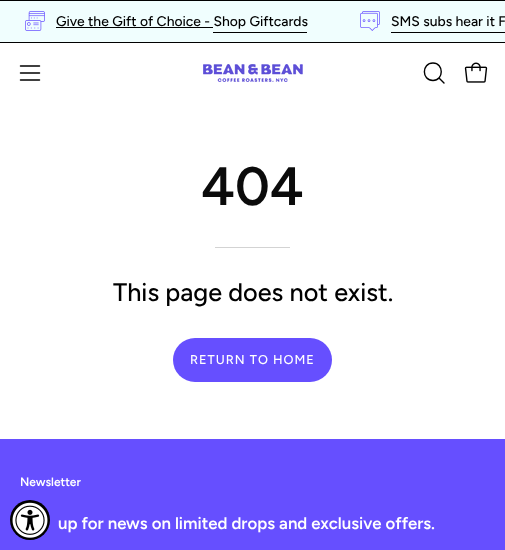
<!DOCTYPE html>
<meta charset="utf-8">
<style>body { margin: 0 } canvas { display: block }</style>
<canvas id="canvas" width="505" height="550"></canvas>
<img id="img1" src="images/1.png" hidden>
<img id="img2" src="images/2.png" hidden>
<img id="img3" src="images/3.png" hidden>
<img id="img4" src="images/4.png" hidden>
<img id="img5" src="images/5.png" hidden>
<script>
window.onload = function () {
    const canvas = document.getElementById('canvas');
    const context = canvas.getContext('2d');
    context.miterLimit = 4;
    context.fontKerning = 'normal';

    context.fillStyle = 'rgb(255, 255, 255)';
    context.fillRect(0, 0, 505, 550);
    context.fillStyle = 'rgb(240, 254, 254)';
    context.fillRect(0, 1, 505, 41);
    context.fillStyle = 'rgb(0, 0, 0)';
    context.fillRect(0, 0, 505, 1);
    context.fillRect(0, 42, 505, 1);
    context.drawImage(document.getElementById('img1'), 25, 11, 20, 20);
    context.fillRect(56, 27, 157, 1);
    context.fillRect(213, 32, 94, 1);
    context.drawImage(document.getElementById('img2'), 360, 11, 20, 20);
    context.fillRect(391, 32, 114, 1);
    context.beginPath();
    context.moveTo(20.5, 73);
    context.lineTo(39.5, 73);
    context.moveTo(20.5, 66);
    context.lineTo(39.5, 66);
    context.moveTo(20.5, 80);
    context.lineTo(39.5, 80);
    context.strokeStyle = 'rgb(0, 0, 0)';
    context.lineWidth = 1.5;
    context.lineCap = 'round';
    context.lineJoin = 'round';
    context.stroke();
    context.drawImage(document.getElementById('img3'), 203, 64, 100, 18);
    context.beginPath();
    context.moveTo(433, 80.5);
    context.bezierCurveTo(444, 80.5, 444, 63, 433, 63);
    context.bezierCurveTo(421.5, 63, 421.5, 80.5, 433, 80.5);
    context.closePath();
    context.moveTo(439, 78);
    context.lineTo(444, 83);
    context.lineWidth = 1.4;
    context.stroke();
    context.drawImage(document.getElementById('img4'), 464, 62, 24, 21);
    context.fillStyle = 'rgb(211, 211, 211)';
    context.fillRect(215, 247, 75, 1);
    context.fillStyle = 'rgb(102, 79, 255)';
    context.beginPath();
    context.roundRect(173, 338, 159, 44, 22);
    context.fill();
    context.fillRect(0, 439, 505, 111);
    context.fillStyle = 'rgb(0, 0, 0)';
    context.beginPath();
    context.arc(30, 520, 20, 0, 2 * Math.PI);
    context.fill();
    context.drawImage(document.getElementById('img5'), 12, 502, 36, 36);
    context.font = '500 13.9px Figtree';
    context.fillText('Give the Gift of Choice - Shop Giftcards', 56, 26);
    context.fillText('SMS subs hear it F', 391, 26);
    context.font = '600 54px Figtree';
    context.fillStyle = 'rgb(11, 11, 11)';
    context.fillText('404', 201, 205);
    context.font = '500 25.25px Figtree';
    context.fillStyle = 'rgb(0, 0, 0)';
    context.fillText('This page does not exist.', 113, 301);
    context.letterSpacing = '1px';
    context.font = '500 12.75px Figtree';
    context.fillStyle = 'rgb(255, 255, 255)';
    context.fillText('RETURN TO HOME', 190, 364);
    context.letterSpacing = '0px';
    context.font = '600 12px Figtree';
    context.fillText('Newsletter', 20, 486);
    context.font = '600 16.8px Figtree';
    context.fillText('up for news on limited drops and exclusive offers.', 58, 529);
};
</script>
